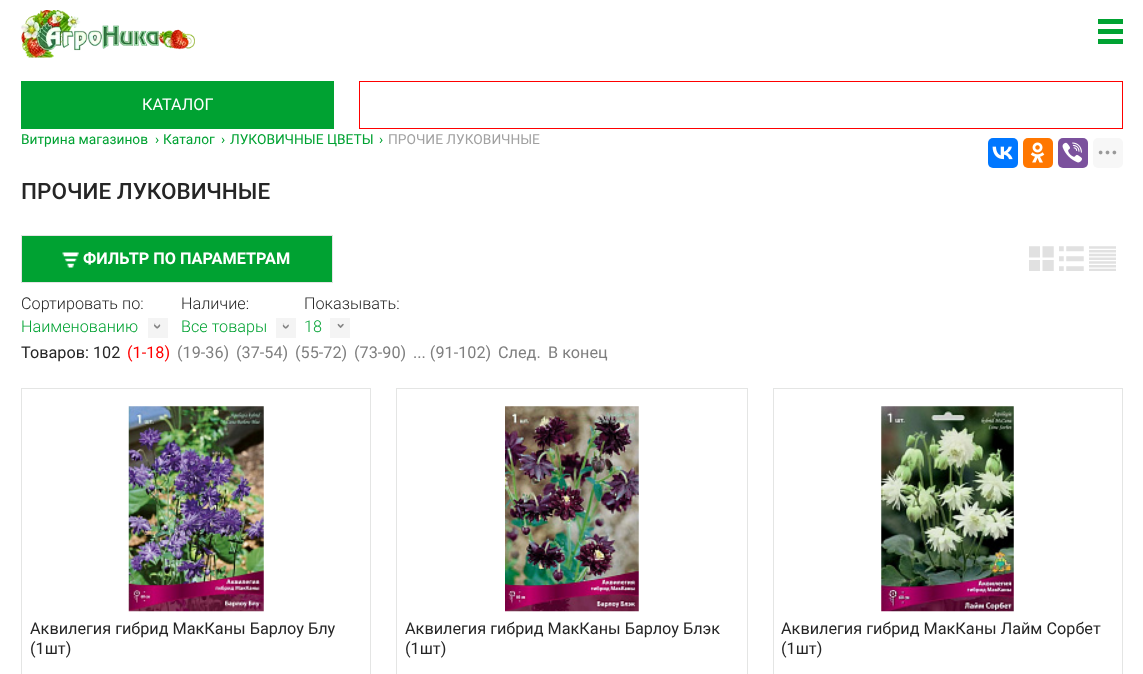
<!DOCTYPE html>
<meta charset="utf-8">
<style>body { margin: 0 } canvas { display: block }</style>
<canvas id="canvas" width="1143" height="674"></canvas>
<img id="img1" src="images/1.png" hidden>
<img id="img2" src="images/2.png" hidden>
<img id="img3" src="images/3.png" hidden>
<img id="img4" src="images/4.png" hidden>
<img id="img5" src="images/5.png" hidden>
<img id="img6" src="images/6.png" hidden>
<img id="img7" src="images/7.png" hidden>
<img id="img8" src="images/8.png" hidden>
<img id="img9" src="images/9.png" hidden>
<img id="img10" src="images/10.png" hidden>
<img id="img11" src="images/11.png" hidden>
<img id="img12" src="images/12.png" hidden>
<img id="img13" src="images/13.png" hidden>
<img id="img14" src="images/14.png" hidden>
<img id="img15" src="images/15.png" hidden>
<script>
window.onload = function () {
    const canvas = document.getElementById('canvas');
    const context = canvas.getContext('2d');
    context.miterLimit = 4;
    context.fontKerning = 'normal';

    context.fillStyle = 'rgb(255, 255, 255)';
    context.fillRect(0, 0, 1143, 674);
    context.drawImage(document.getElementById('img1'), 21, 10, 174, 48);
    context.fillStyle = 'rgb(0, 162, 50)';
    context.fillRect(1098, 19, 25, 5);
    context.fillRect(1098, 29, 25, 5);
    context.fillRect(1098, 39, 25, 5);
    context.fillRect(21, 81, 313, 48);
    context.strokeStyle = 'rgb(255, 0, 0)';
    context.strokeRect(359.5, 81.5, 763, 47);
    context.fillStyle = 'rgb(0, 119, 255)';
    context.beginPath();
    context.roundRect(988, 138, 30, 30, 5);
    context.fill();
    context.drawImage(document.getElementById('img2'), 992, 146, 21, 14);
    context.fillStyle = 'rgb(255, 119, 0)';
    context.beginPath();
    context.roundRect(1023, 138, 30, 30, 5);
    context.fill();
    context.drawImage(document.getElementById('img3'), 1030, 142, 15, 21);
    context.fillStyle = 'rgb(123, 81, 157)';
    context.beginPath();
    context.roundRect(1058, 138, 30, 30, 5);
    context.fill();
    context.drawImage(document.getElementById('img4'), 1062, 142, 20, 21);
    context.fillStyle = 'rgb(247, 247, 247)';
    context.beginPath();
    context.roundRect(1093, 138, 30, 30, 5);
    context.fill();
    context.drawImage(document.getElementById('img5'), 1098, 150, 19, 5);
    context.fillStyle = 'rgb(0, 162, 50)';
    context.beginPath();
    context.rect(21.5, 235.5, 311, 47);
    context.fill();
    context.strokeStyle = 'rgb(228, 229, 228)';
    context.stroke();
    context.drawImage(document.getElementById('img6'), 62, 252, 17, 16);
    context.drawImage(document.getElementById('img7'), 1029, 246, 25, 25);
    context.drawImage(document.getElementById('img8'), 1059, 246, 25, 25);
    context.drawImage(document.getElementById('img9'), 1089, 246, 27, 25);
    context.fillStyle = 'rgb(244, 244, 244)';
    context.fillRect(148, 318, 20, 20);
    context.drawImage(document.getElementById('img10'), 154, 323, 7, 6);
    context.fillRect(276, 318, 20, 20);
    context.drawImage(document.getElementById('img11'), 282, 323, 7, 6);
    context.fillRect(330, 318, 20, 20);
    context.drawImage(document.getElementById('img12'), 337, 323, 7, 5);
    context.strokeRect(21.5, 388.5, 349, 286);
    context.drawImage(document.getElementById('img13'), 128, 406, 136, 206);
    context.strokeRect(396.5, 388.5, 351, 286);
    context.drawImage(document.getElementById('img14'), 505, 406, 134, 206);
    context.strokeRect(773.5, 388.5, 349, 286);
    context.drawImage(document.getElementById('img15'), 881, 406, 133, 206);
    context.font = '16.25px Roboto';
    context.fillStyle = 'rgb(255, 255, 255)';
    context.fillText('КАТАЛОГ', 142, 110);
    context.font = '13.75px Roboto';
    context.fillStyle = 'rgb(0, 162, 50)';
    context.fillText('Витрина магазинов', 21, 144);
    context.fillText('›', 155, 144);
    context.fillText('Каталог', 163, 144);
    context.fillText('›', 221, 144);
    context.fillText('ЛУКОВИЧНЫЕ ЦВЕТЫ', 230, 144);
    context.fillText('›', 379, 144);
    context.fillStyle = 'rgb(160, 160, 160)';
    context.fillText('ПРОЧИЕ ЛУКОВИЧНЫЕ', 388, 144);
    context.font = '500 22.5px Roboto';
    context.fillStyle = 'rgb(37, 37, 37)';
    context.fillText('ПРОЧИЕ ЛУКОВИЧНЫЕ', 21, 199);
    context.font = 'bold 16.25px Roboto';
    context.fillStyle = 'rgb(255, 255, 255)';
    context.fillText('ФИЛЬТР ПО ПАРАМЕТРАМ', 83, 264);
    context.font = '300 16.25px Roboto';
    context.fillStyle = 'rgb(37, 37, 37)';
    context.fillText('Сортировать по:', 21, 309);
    context.fillStyle = 'rgb(0, 162, 50)';
    context.fillText('Наименованию', 21, 332);
    context.fillStyle = 'rgb(37, 37, 37)';
    context.fillText('Наличие:', 181, 309);
    context.fillStyle = 'rgb(0, 162, 50)';
    context.fillText('Все товары', 181, 332);
    context.fillStyle = 'rgb(37, 37, 37)';
    context.fillText('Показывать:', 304, 309);
    context.fillStyle = 'rgb(0, 162, 50)';
    context.fillText('18', 304, 332);
    context.font = '16.25px Roboto';
    context.fillStyle = 'rgb(37, 37, 37)';
    context.fillText('Товаров: 102', 21, 358);
    context.fillStyle = 'rgb(255, 0, 0)';
    context.fillText('(1-18)', 127, 358);
    context.fillStyle = 'rgb(127, 127, 127)';
    context.fillText('(19-36)', 177, 358);
    context.fillText('(37-54)', 236, 358);
    context.fillText('(55-72)', 295, 358);
    context.fillText('(73-90)', 354, 358);
    context.fillText('... (91-102)', 413, 358);
    context.fillText('След.', 498, 358);
    context.fillText('В конец', 548, 358);
    context.fillStyle = 'rgb(37, 37, 37)';
    context.fillText('Аквилегия гибрид МакКаны Барлоу Блу', 30, 634);
    context.fillText('(1шт)', 30, 654);
    context.fillText('Аквилегия гибрид МакКаны Барлоу Блэк', 405, 634);
    context.fillText('(1шт)', 405, 654);
    context.fillText('Аквилегия гибрид МакКаны Лайм Сорбет', 781, 634);
    context.fillText('(1шт)', 781, 654);
};
</script>
